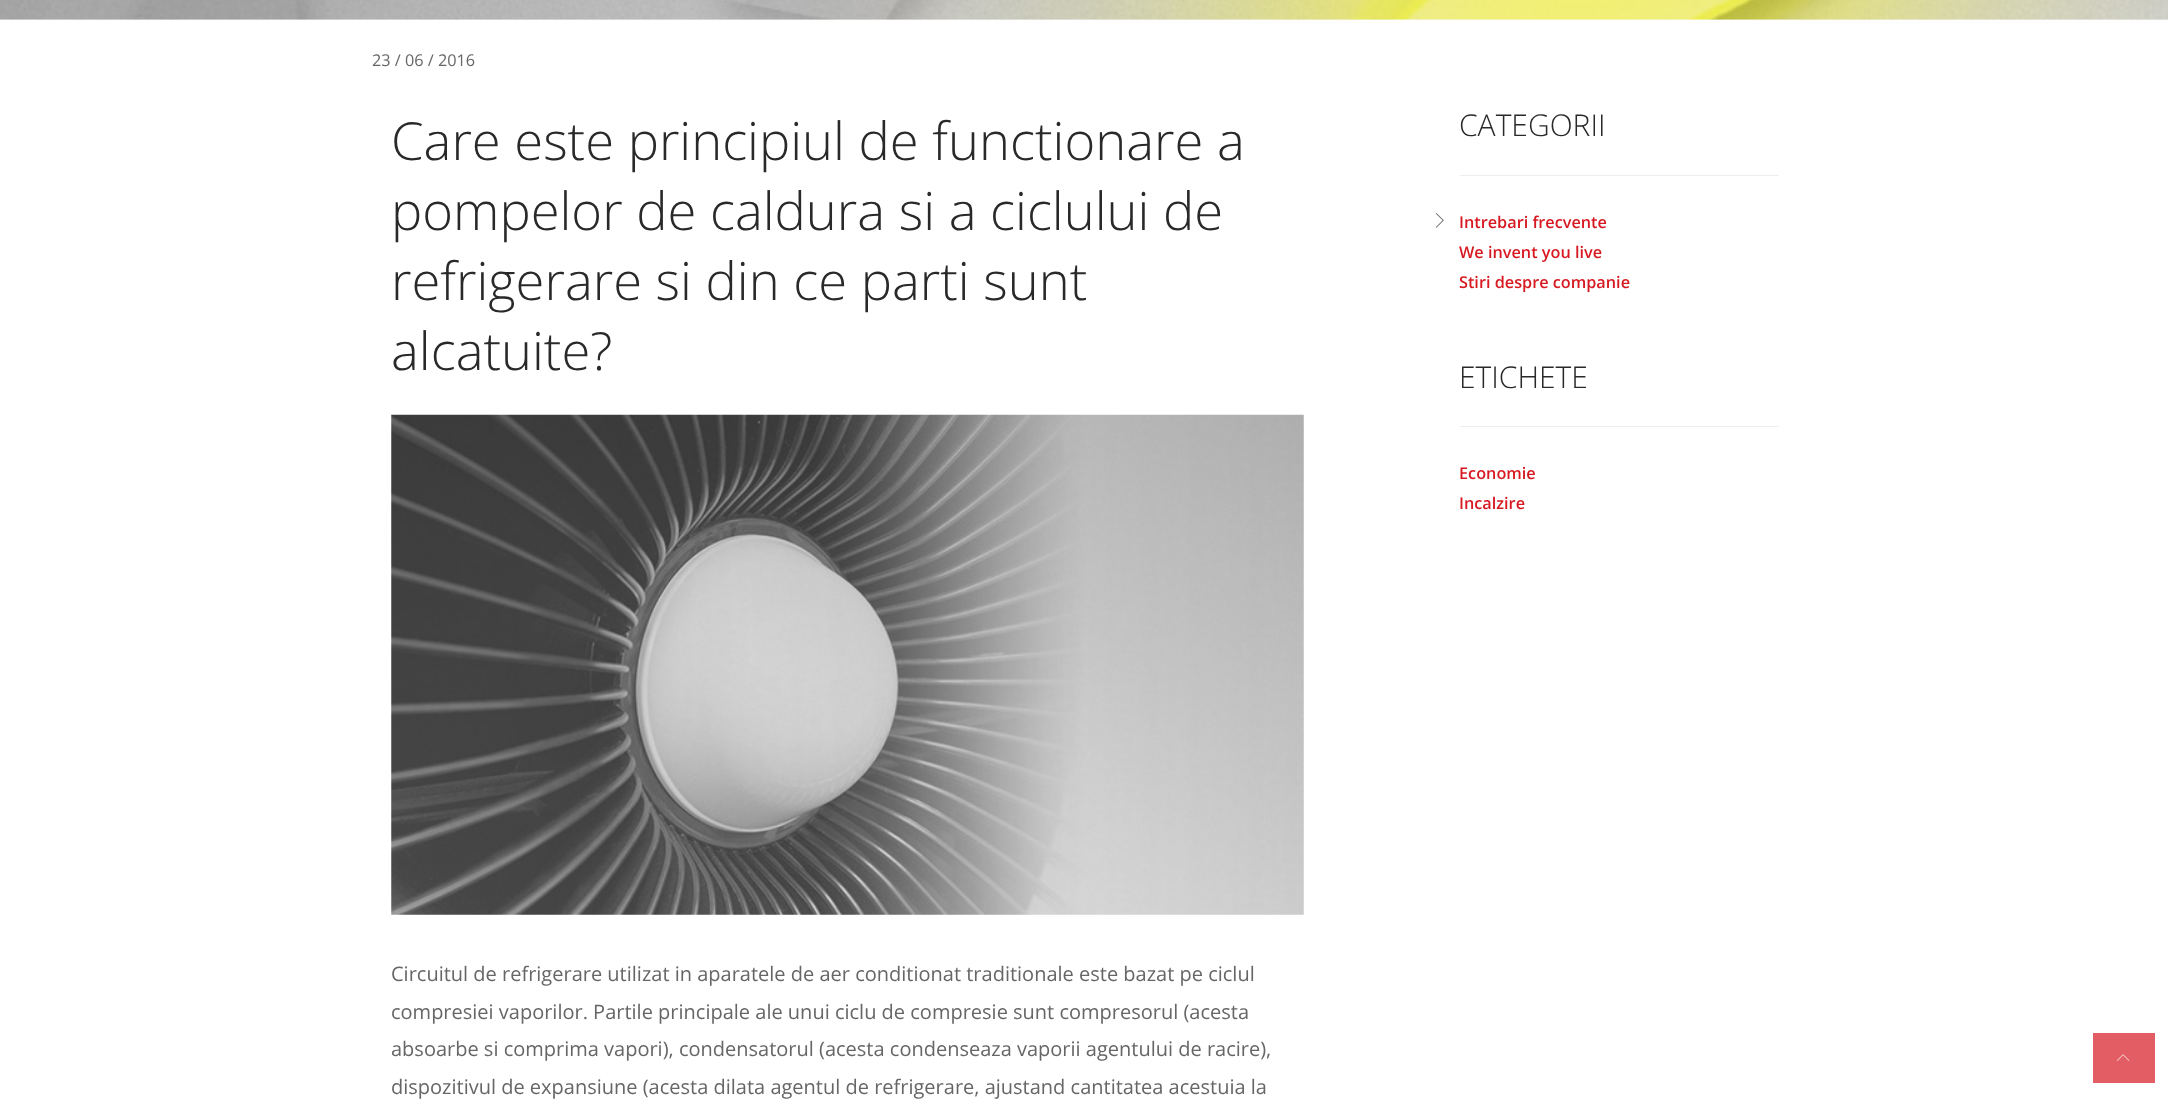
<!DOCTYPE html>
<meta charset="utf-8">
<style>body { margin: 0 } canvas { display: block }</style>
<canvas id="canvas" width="2168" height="1112"></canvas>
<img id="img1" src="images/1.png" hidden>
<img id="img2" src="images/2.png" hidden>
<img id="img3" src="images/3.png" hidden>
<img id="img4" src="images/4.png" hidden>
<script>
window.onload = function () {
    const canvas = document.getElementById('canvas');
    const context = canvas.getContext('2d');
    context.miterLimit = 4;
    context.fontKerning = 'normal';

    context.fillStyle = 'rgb(255, 255, 255)';
    context.fillRect(0, 0, 2168, 1112);
    context.fillStyle = 'rgb(247, 247, 247)';
    context.fillRect(0, 19, 2168, 1);
    context.drawImage(document.getElementById('img1'), 0, 0, 2168, 20);
    context.drawImage(document.getElementById('img2'), 391, 414, 913, 501);
    context.fillStyle = 'rgb(238, 238, 238)';
    context.fillRect(1460, 175, 319, 1);
    context.drawImage(document.getElementById('img3'), 1435, 213, 9, 15);
    context.fillRect(1460, 426, 319, 1);
    context.fillStyle = 'rgb(227, 94, 100)';
    context.fillRect(2093, 1033, 62, 50);
    context.drawImage(document.getElementById('img4'), 2116, 1054, 14, 7);
    context.font = '16.25px Open Sans';
    context.fillStyle = 'rgb(102, 102, 102)';
    context.fillText('23 / 06 / 2016', 372, 66);
    context.font = '300 52.5px Open Sans';
    context.fillStyle = 'rgb(41, 41, 41)';
    context.fillText('Care este principiul de functionare a', 391, 160);
    context.fillText('pompelor de caldura si a ciclului de', 391, 230);
    context.fillText('refrigerare si din ce parti sunt', 391, 300);
    context.fillText('alcatuite?', 391, 370);
    context.font = '20px Open Sans';
    context.fillStyle = 'rgb(102, 102, 102)';
    context.fillText('Circuitul de refrigerare utilizat in aparatele de aer conditionat traditionale este bazat pe ciclul', 391, 981);
    context.fillText('compresiei vaporilor. Partile principale ale unui ciclu de compresie sunt compresorul (acesta', 391, 1019);
    context.fillText('absoarbe si comprima vapori), condensatorul (acesta condenseaza vaporii agentului de racire),', 391, 1056);
    context.fillText('dispozitivul de expansiune (acesta dilata agentul de refrigerare, ajustand cantitatea acestuia la', 391, 1094);
    context.font = '300 30px Open Sans';
    context.fillStyle = 'rgb(41, 41, 41)';
    context.fillText('CATEGORII', 1459, 136);
    context.font = '600 16.25px Open Sans';
    context.fillStyle = 'rgb(215, 25, 33)';
    context.fillText('Intrebari frecvente', 1459, 228);
    context.fillText('We invent you live', 1459, 258);
    context.fillText('Stiri despre companie', 1459, 288);
    context.font = '300 30px Open Sans';
    context.fillStyle = 'rgb(41, 41, 41)';
    context.fillText('ETICHETE', 1459, 388);
    context.font = '600 16.25px Open Sans';
    context.fillStyle = 'rgb(215, 25, 33)';
    context.fillText('Economie', 1459, 479);
    context.fillText('Incalzire', 1459, 509);
};
</script>
